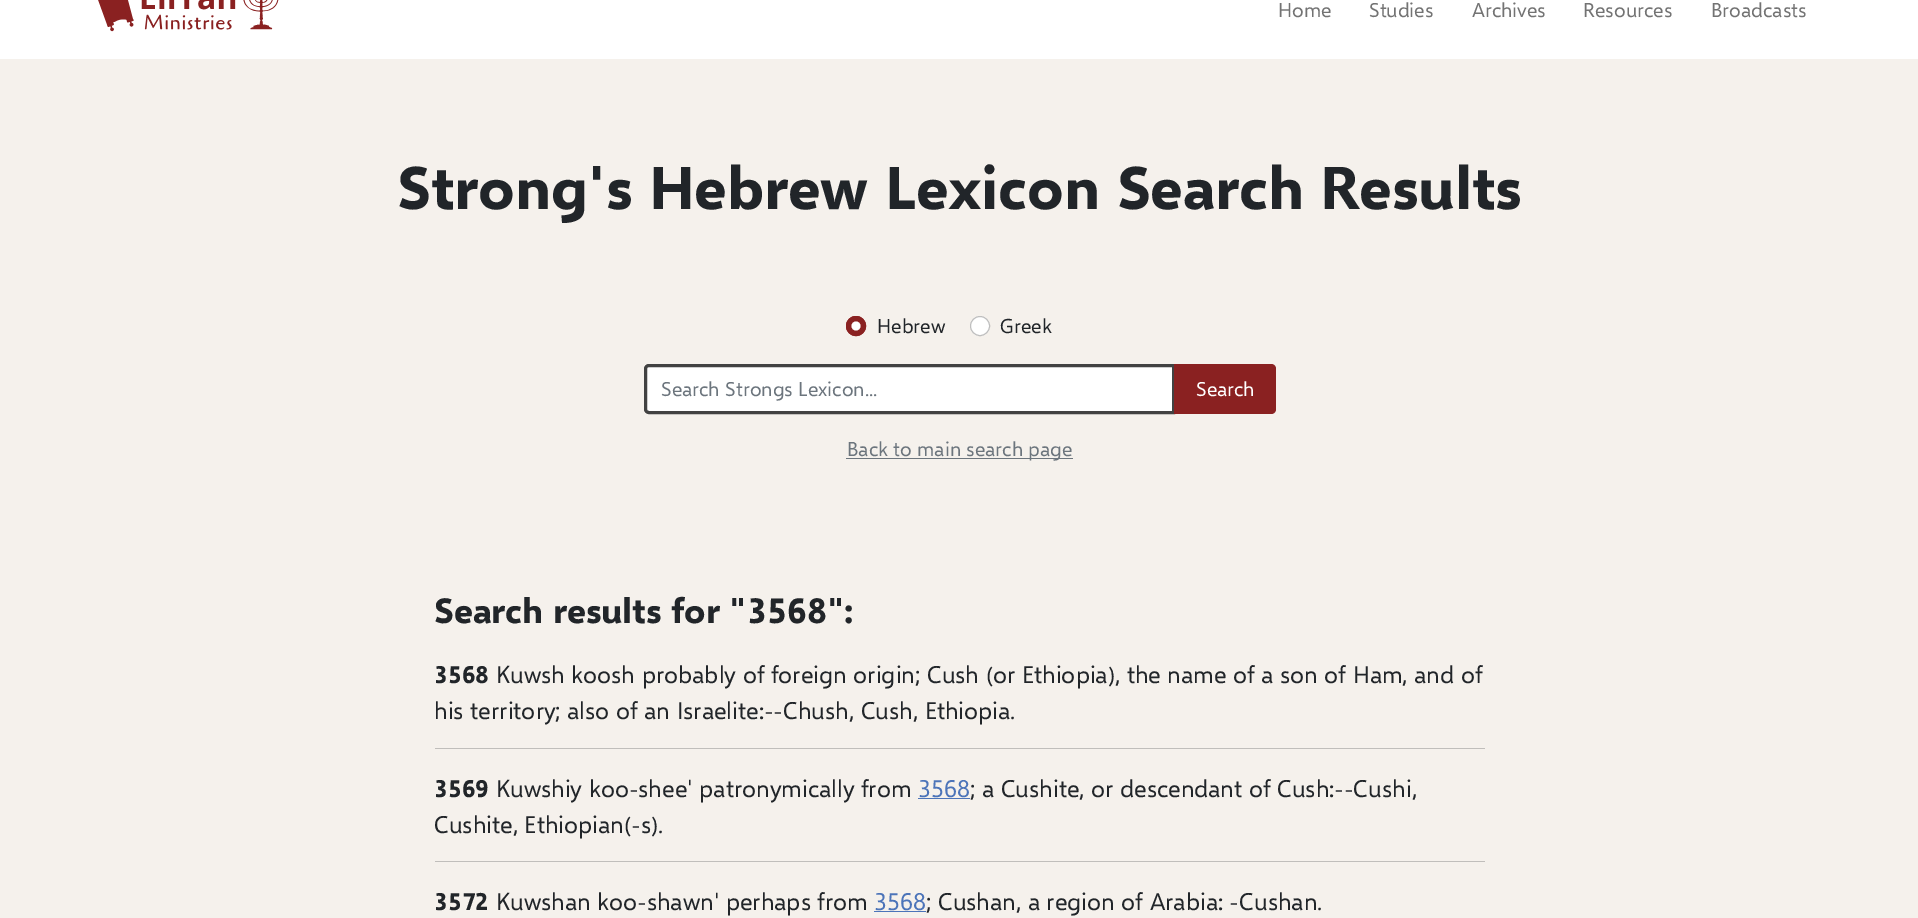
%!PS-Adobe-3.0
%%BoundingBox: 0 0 1918 918
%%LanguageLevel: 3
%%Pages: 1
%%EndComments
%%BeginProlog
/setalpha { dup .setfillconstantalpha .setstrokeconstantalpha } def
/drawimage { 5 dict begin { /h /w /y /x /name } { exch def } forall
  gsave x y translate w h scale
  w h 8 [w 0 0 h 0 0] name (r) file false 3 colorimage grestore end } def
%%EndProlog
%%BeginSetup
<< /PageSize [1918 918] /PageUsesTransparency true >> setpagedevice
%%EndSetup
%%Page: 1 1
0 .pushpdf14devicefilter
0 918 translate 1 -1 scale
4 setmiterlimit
0.961 0.945 0.925 setrgbcolor
0 0 1918 918 rectfill
1 setgray
0 0 1918 59 rectfill
(images/1.raw) 98 0 181 32 drawimage
0.541 0.129 0.129 setrgbcolor
newpath 856 326 10 0 360 arc closepath fill
1 setgray
newpath 856 326 4.5 0 360 arc closepath fill
0.541 0.129 0.129 setrgbcolor
newpath 856 326 9.5 0 360 arc closepath stroke
1 setgray
newpath 980 326 10 0 360 arc closepath fill
0.25 setalpha
0 setgray
newpath 980 326 9.5 0 360 arc closepath stroke
1 setalpha
1 setgray
newpath 649 365.5 moveto 1173.5 365.5 lineto 1173.5 412.5 lineto 649 412.5 lineto 647 412.5 645.5 411 645.5 409 curveto 645.5 369 lineto 645.5 367 647 365.5 649 365.5 curveto closepath gsave fill grestore
0.259 setgray
3 setlinewidth
stroke
0.541 0.129 0.129 setrgbcolor
newpath 1174 364 moveto 1271 364 lineto 1274 364 1276 366 1276 369 curveto 1276 409 lineto 1276 412 1274 414 1271 414 curveto 1174 414 lineto closepath fill
0.424 0.459 0.49 setrgbcolor
846 458 227 1 rectfill
0.753 0.745 0.733 setrgbcolor
435 748 1050 1 rectfill
0.298 0.455 0.725 setrgbcolor
918 798 52 1 rectfill
0.753 0.745 0.733 setrgbcolor
435 861 1050 1 rectfill
0.298 0.455 0.725 setrgbcolor
874 911 52 1 rectfill
/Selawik-Regular [20 0 0 -20 0 0] selectfont
0.451 setgray
1278 17 moveto (Home) show
1369 17 moveto (Studies) show
1472 17 moveto (Archives) show
1583 17 moveto (Resources) show
1711 17 moveto (Broadcasts) show
/Selawik-Bold [60 0 0 -60 0 0] selectfont
0.129 0.145 0.161 setrgbcolor
397 209 moveto (Strong's Hebrew Lexicon Search Results) show
/Selawik-Regular [20 0 0 -20 0 0] selectfont
877 333 moveto (Hebrew) show
1000 333 moveto (Greek) show
0.424 0.459 0.49 setrgbcolor
661 396 moveto (Search Strongs Lexicon...) show
1 setgray
1196 396 moveto (Search) show
0.424 0.459 0.49 setrgbcolor
847 456 moveto (Back to main search page) show
/Selawik-Bold [35 0 0 -35 0 0] selectfont
0.129 0.145 0.161 setrgbcolor
434 623 moveto (Search results for "3568":) show
/Selawik-Bold [24 0 0 -24 0 0] selectfont
434 683 moveto (3568) show
/Selawik-Regular [24 0 0 -24 0 0] selectfont
496 683 moveto (Kuwsh koosh probably of foreign origin; Cush \(or Ethiopia\), the name of a son of Ham, and of) show
434 719 moveto (his territory; also of an Israelite:--Chush, Cush, Ethiopia.) show
/Selawik-Bold [24 0 0 -24 0 0] selectfont
434 797 moveto (3569) show
/Selawik-Regular [24 0 0 -24 0 0] selectfont
496 797 moveto (Kuwshiy koo-shee' patronymically from) show
0.298 0.455 0.725 setrgbcolor
918 797 moveto (3568) show
0.129 0.145 0.161 setrgbcolor
970 797 moveto (; a Cushite, or descendant of Cush:--Cushi,) show
434 833 moveto (Cushite, Ethiopian\(-s\).) show
/Selawik-Bold [24 0 0 -24 0 0] selectfont
434 910 moveto (3572) show
/Selawik-Regular [24 0 0 -24 0 0] selectfont
496 910 moveto (Kuwshan koo-shawn' perhaps from) show
0.298 0.455 0.725 setrgbcolor
874 910 moveto (3568) show
0.129 0.145 0.161 setrgbcolor
926 910 moveto (; Cushan, a region of Arabia: -Cushan.) show
.poppdf14devicefilter showpage
%%EOF
